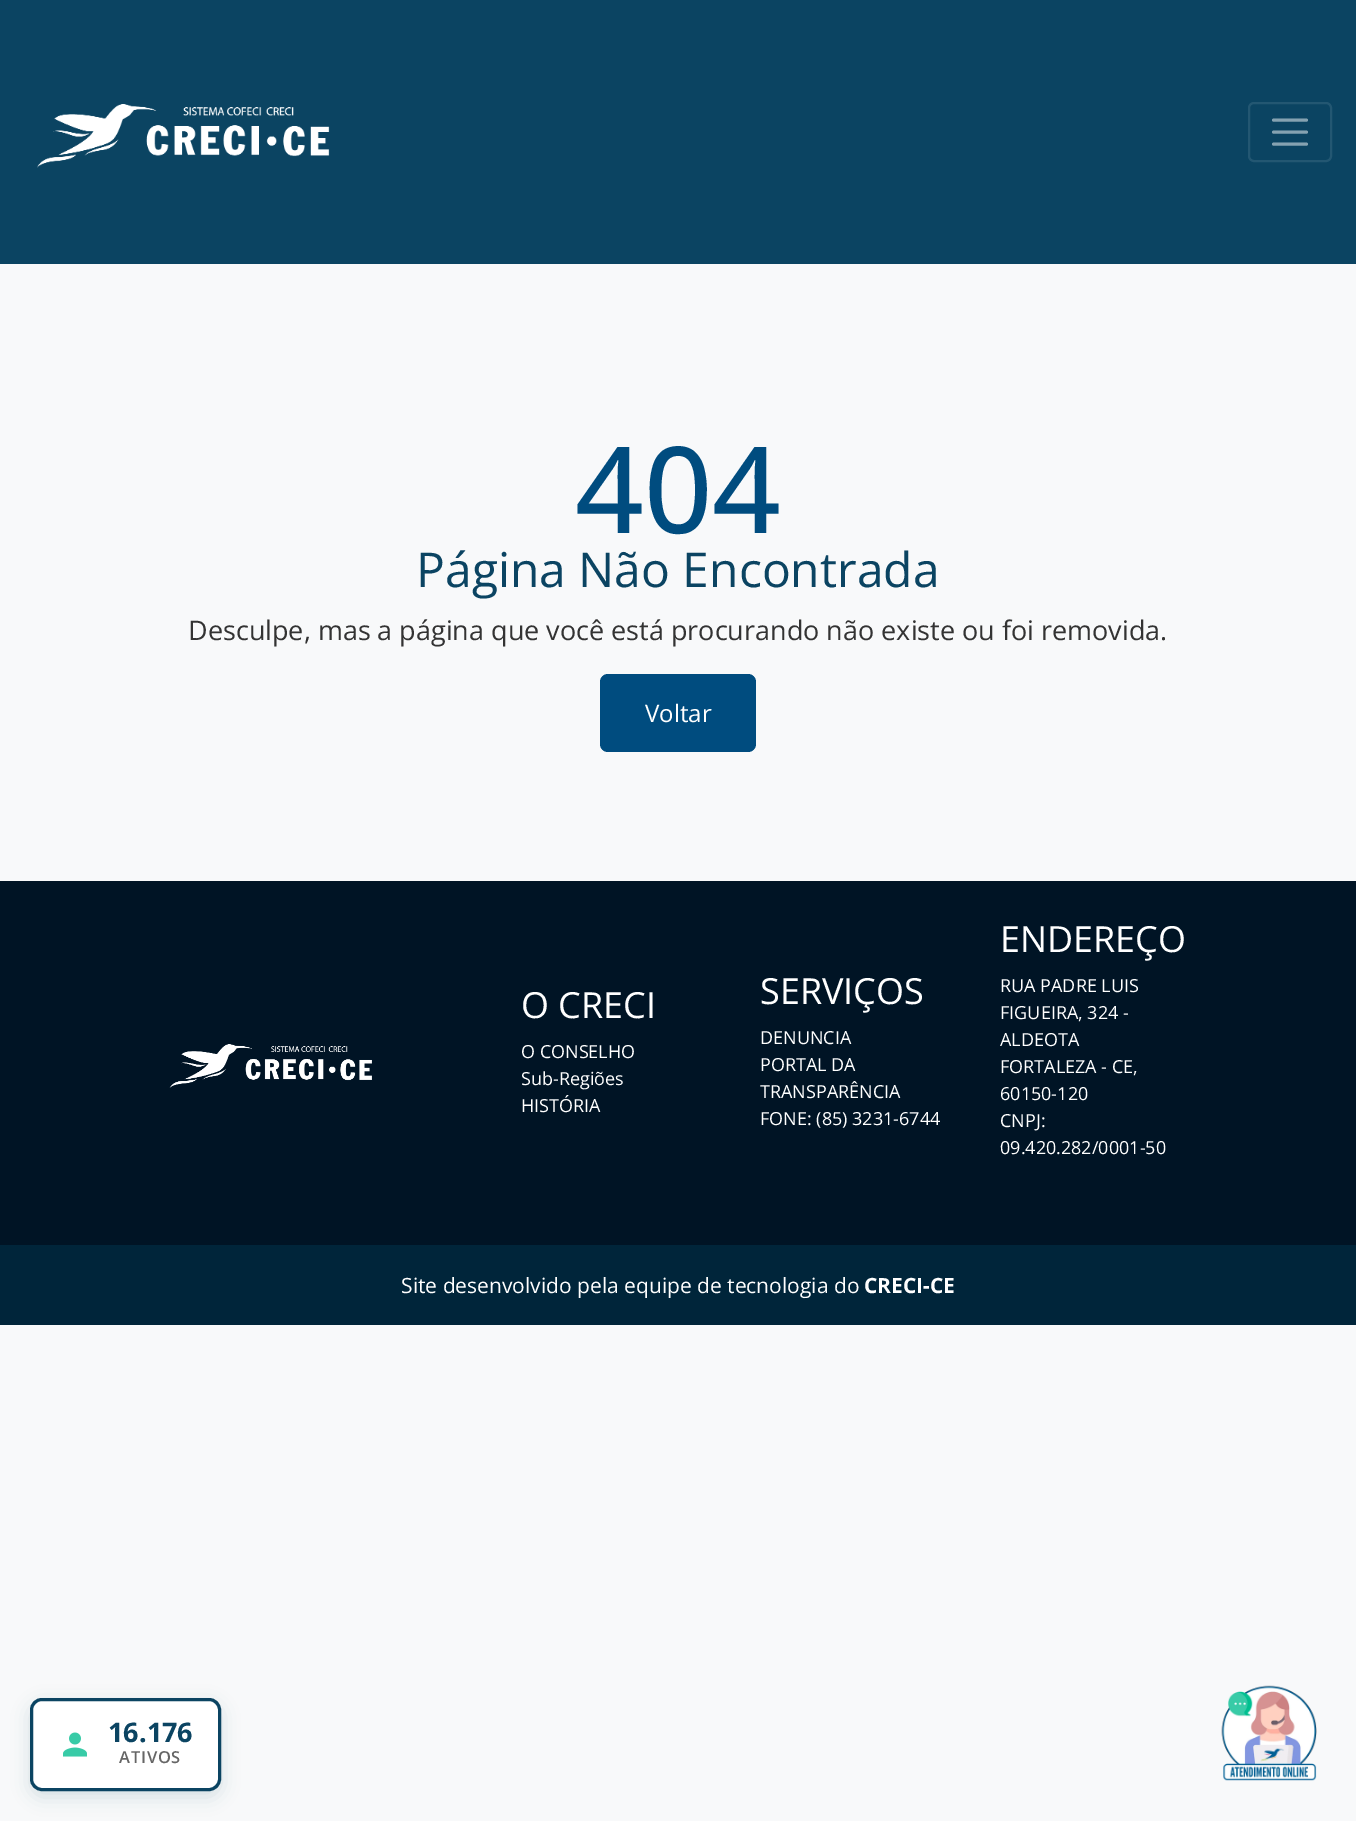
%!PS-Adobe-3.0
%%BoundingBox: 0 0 1356 1821
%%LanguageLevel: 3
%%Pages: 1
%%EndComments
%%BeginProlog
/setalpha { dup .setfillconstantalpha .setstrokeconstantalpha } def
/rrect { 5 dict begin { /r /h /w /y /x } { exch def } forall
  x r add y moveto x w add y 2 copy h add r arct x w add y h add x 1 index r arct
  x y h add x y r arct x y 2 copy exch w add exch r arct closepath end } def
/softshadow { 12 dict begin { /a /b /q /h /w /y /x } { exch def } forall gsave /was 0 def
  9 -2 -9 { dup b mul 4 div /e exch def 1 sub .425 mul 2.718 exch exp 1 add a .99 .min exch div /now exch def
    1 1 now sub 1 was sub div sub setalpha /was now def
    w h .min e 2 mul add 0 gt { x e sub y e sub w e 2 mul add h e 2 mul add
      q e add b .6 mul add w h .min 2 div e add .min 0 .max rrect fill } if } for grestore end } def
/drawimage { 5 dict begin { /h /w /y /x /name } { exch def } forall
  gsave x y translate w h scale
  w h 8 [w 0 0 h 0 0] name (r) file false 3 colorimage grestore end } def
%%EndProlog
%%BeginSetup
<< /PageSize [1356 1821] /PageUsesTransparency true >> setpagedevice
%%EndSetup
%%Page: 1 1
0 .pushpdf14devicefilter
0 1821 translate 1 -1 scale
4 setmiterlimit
0.973 0.976 0.98 setrgbcolor
0 0 1356 1821 rectfill
0.043 0.267 0.384 setrgbcolor
0 0 1356 264 rectfill
(images/1.raw) 37 104 293 64 drawimage
0.137 0.341 0.447 setrgbcolor
2 setlinewidth
1249 103 82 58 5 rrect stroke
0.522 0.635 0.694 setrgbcolor
3 setlinewidth
1 setlinecap
newpath 1273.5 120 moveto 1306.5 120 lineto 1273.5 132 moveto 1306.5 132 lineto 1273.5 144 moveto 1306.5 144 lineto stroke
0 0.298 0.498 setrgbcolor
600 674 156 78 8 rrect fill
0 0.078 0.145 setrgbcolor
0 881 1356 364 rectfill
(images/2.raw) 169 1044 203 44 drawimage
0 0.145 0.227 setrgbcolor
0 1245 1356 80 rectfill
0.043 0.267 0.384 setrgbcolor
30 1704 191 93 12 9 0.15 softshadow
1 setgray
31.5 1699.5 188 90 10.5 rrect gsave fill grestore
0.043 0.267 0.384 setrgbcolor
0 setlinecap
stroke
(images/3.raw) 63 1732 24 25 drawimage
(images/4.raw) 1221 1685 96 96 drawimage
/OpenSans-Medium [120 0 0 -120 0 0] selectfont
0 0.298 0.498 setrgbcolor
575 533 moveto (404) show
/OpenSans-Regular [48 0 0 -48 0 0] selectfont
0.043 0.267 0.384 setrgbcolor
416 587 moveto (Página Não Encontrada) show
/OpenSans-Regular [27 0 0 -27 0 0] selectfont
0.2 setgray
188 640 moveto (Desculpe, mas a página que você está procurando não existe ou foi removida.) show
/OpenSans-Regular [24 0 0 -24 0 0] selectfont
1 setgray
645 722 moveto (Voltar) show
/OpenSans-Regular [36 0 0 -36 0 0] selectfont
521 1018 moveto (O CRECI) show
/OpenSans-Regular [18 0 0 -18 0 0] selectfont
521 1058 moveto (O CONSELHO) show
521 1085 moveto (Sub-Regiões) show
521 1112 moveto (HISTÓRIA) show
/OpenSans-Regular [36 0 0 -36 0 0] selectfont
760 1004 moveto (SERVIÇOS) show
/OpenSans-Regular [18 0 0 -18 0 0] selectfont
760 1044 moveto (DENUNCIA) show
760 1071 moveto (PORTAL DA) show
760 1098 moveto (TRANSPARÊNCIA) show
760 1125 moveto (FONE: \(85\) 3231-6744) show
/OpenSans-Regular [36 0 0 -36 0 0] selectfont
1000 952 moveto (ENDEREÇO) show
/OpenSans-Regular [18 0 0 -18 0 0] selectfont
1000 992 moveto (RUA PADRE LUIS) show
1000 1019 moveto (FIGUEIRA, 324 -) show
1000 1046 moveto (ALDEOTA) show
1000 1073 moveto (FORTALEZA - CE,) show
1000 1100 moveto (60150-120) show
1000 1127 moveto (CNPJ:) show
1000 1154 moveto (09.420.282/0001-50) show
/OpenSans-Regular [21 0 0 -21 0 0] selectfont
401 1293 moveto (Site desenvolvido pela equipe de tecnologia do) show
/OpenSans-Bold [21 0 0 -21 0 0] selectfont
864 1293 moveto (CRECI-CE) show
/OpenSans-Bold [27 0 0 -27 0 0] selectfont
0.043 0.267 0.384 setrgbcolor
108 1742 moveto (16.176) show
/OpenSans-SemiBold [16.5 0 0 -16.5 0 0] selectfont
0.4 setgray
119 1763 moveto 0.75 0 (ATIVOS) ashow
.poppdf14devicefilter showpage
%%EOF
